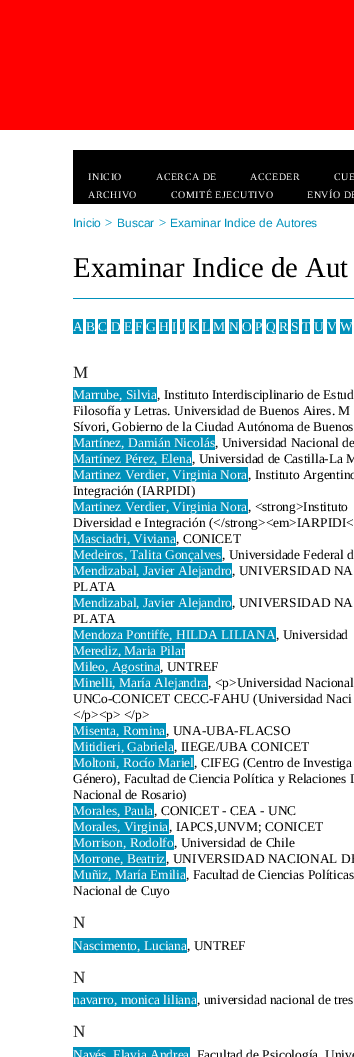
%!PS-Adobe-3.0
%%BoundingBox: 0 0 354 1057
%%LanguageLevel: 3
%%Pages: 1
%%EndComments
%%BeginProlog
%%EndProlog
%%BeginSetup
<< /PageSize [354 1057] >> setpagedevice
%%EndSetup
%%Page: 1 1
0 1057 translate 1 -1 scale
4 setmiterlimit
1 setgray
0 0 354 1057 rectfill
1 0 0 setrgbcolor
0 0 354 130 rectfill
0 setgray
73 150 281 54 rectfill
0 0.569 0.733 setrgbcolor
73 298 281 1 rectfill
73 319 10 15 rectfill
86 319 9 15 rectfill
98 319 9 15 rectfill
111 319 9 15 rectfill
124 319 8 15 rectfill
135 319 8 15 rectfill
146 319 10 15 rectfill
159 319 10 15 rectfill
172 319 5 15 rectfill
180 319 5 15 rectfill
189 319 10 15 rectfill
202 319 8 15 rectfill
213 319 12 15 rectfill
229 319 10 15 rectfill
242 319 10 15 rectfill
255 319 7 15 rectfill
266 319 10 15 rectfill
279 319 9 15 rectfill
291 319 8 15 rectfill
302 319 8 15 rectfill
314 319 9 15 rectfill
327 319 9 15 rectfill
340 319 12 15 rectfill
73 387 84 15 rectfill
73 435 142 15 rectfill
73 451 119 15 rectfill
73 467 175 15 rectfill
73 499 175 15 rectfill
73 531 103 15 rectfill
73 547 149 15 rectfill
73 563 159 15 rectfill
73 595 159 15 rectfill
73 627 203 15 rectfill
73 643 112 15 rectfill
73 659 87 15 rectfill
73 675 135 15 rectfill
73 723 93 15 rectfill
73 739 101 15 rectfill
73 755 121 15 rectfill
73 803 81 15 rectfill
73 819 96 15 rectfill
73 835 101 15 rectfill
73 851 93 15 rectfill
73 867 113 15 rectfill
73 938 114 15 rectfill
73 992 124 15 rectfill
73 1047 117 10 rectfill
/LiberationSerif-Regular [10 0 0 -10 0 0] selectfont
1 setgray
88 180 moveto 0.5 0 (INICIO) ashow
156 180 moveto 0.5 0 (ACERCA DE) ashow
250 180 moveto 0.5 0 (ACCEDER) ashow
334 180 moveto 0.5 0 (CUE) ashow
88 198 moveto 0.5 0 (ARCHIVO) ashow
171 198 moveto 0.5 0 (COMITÉ EJECUTIVO) ashow
307 198 moveto 0.5 0 (ENVÍO DE) ashow
/LiberationSans-Regular [12 0 0 -12 0 0] selectfont
0 0.569 0.733 setrgbcolor
73 227 moveto (Inicio) show
/LiberationSerif-Italic [13.4 0 0 -13.4 0 0] selectfont
104 227 moveto (>) show
/LiberationSans-Regular [12 0 0 -12 0 0] selectfont
117 227 moveto (Buscar) show
/LiberationSerif-Italic [13.4 0 0 -13.4 0 0] selectfont
158 227 moveto (>) show
/LiberationSans-Regular [12 0 0 -12 0 0] selectfont
170 227 moveto (Examinar Indice de Autores) show
/LiberationSerif-Regular [28.75 0 0 -28.75 0 0] selectfont
0 setgray
73 277 moveto (Examinar Indice de Aut) show
/LiberationSerif-Regular [13.4 0 0 -13.4 0 0] selectfont
1 setgray
73 331 moveto (A) show
86 331 moveto (B) show
98 331 moveto (C) show
111 331 moveto (D) show
124 331 moveto (E) show
135 331 moveto (F) show
146 331 moveto (G) show
159 331 moveto (H) show
172 331 moveto (I) show
180 331 moveto (J) show
189 331 moveto (K) show
202 331 moveto (L) show
213 331 moveto (M) show
229 331 moveto (N) show
242 331 moveto (O) show
255 331 moveto (P) show
266 331 moveto (Q) show
279 331 moveto (R) show
291 331 moveto (S) show
302 331 moveto (T) show
314 331 moveto (U) show
327 331 moveto (V) show
340 331 moveto (W) show
/LiberationSerif-Regular [17 0 0 -17 0 0] selectfont
0.137 setgray
73 378 moveto (M) show
/LiberationSerif-Regular [13.4 0 0 -13.4 0 0] selectfont
1 setgray
73 399 moveto (Marrube, Silvia) show
0 setgray
157 399 moveto (, Instituto Interdisciplinario de Estud) show
73 415 moveto (Filosofía y Letras. Universidad de Buenos Aires. M) show
73 431 moveto (Sívori, Gobierno de la Ciudad Autónoma de Buenos) show
1 setgray
73 447 moveto (Martínez, Damián Nicolás) show
0 setgray
215 447 moveto (, Universidad Nacional de) show
1 setgray
73 463 moveto (Martínez Pérez, Elena) show
0 setgray
192 463 moveto (, Universidad de Castilla-La M) show
1 setgray
73 479 moveto (Martinez Verdier, Virginia Nora) show
0 setgray
248 479 moveto (, Instituto Argentino) show
73 495 moveto (Integración \(IARPIDI\)) show
1 setgray
73 511 moveto (Martinez Verdier, Virginia Nora) show
0 setgray
248 511 moveto (, <strong>Instituto) show
73 527 moveto (Diversidad e Integración \(</strong><em>IARPIDI<) show
1 setgray
73 543 moveto (Masciadri, Viviana) show
0 setgray
176 543 moveto (, CONICET) show
1 setgray
73 559 moveto (Medeiros, Talita Gonçalves) show
0 setgray
222 559 moveto (, Universidade Federal d) show
1 setgray
73 575 moveto (Mendizabal, Javier Alejandro) show
0 setgray
232 575 moveto (, UNIVERSIDAD NA) show
73 591 moveto (PLATA) show
1 setgray
73 607 moveto (Mendizabal, Javier Alejandro) show
0 setgray
232 607 moveto (, UNIVERSIDAD NA) show
73 623 moveto (PLATA) show
1 setgray
73 639 moveto (Mendoza Pontiffe, HILDA LILIANA) show
0 setgray
276 639 moveto (, Universidad) show
1 setgray
73 655 moveto (Merediz, Maria Pilar) show
73 671 moveto (Mileo, Agostina) show
0 setgray
160 671 moveto (, UNTREF) show
1 setgray
73 687 moveto (Minelli, María Alejandra) show
0 setgray
208 687 moveto (, <p>Universidad Nacional) show
73 703 moveto (UNCo-CONICET CECC-FAHU \(Universidad Naci) show
73 719 moveto (</p><p> </p>) show
1 setgray
73 735 moveto (Misenta, Romina) show
0 setgray
166 735 moveto (, UNA-UBA-FLACSO) show
1 setgray
73 751 moveto (Mitidieri, Gabriela) show
0 setgray
174 751 moveto (, IIEGE/UBA CONICET) show
1 setgray
73 767 moveto (Moltoni, Rocío Mariel) show
0 setgray
194 767 moveto (, CIFEG \(Centro de Investiga) show
73 783 moveto (Género\), Facultad de Ciencia Política y Relaciones I) show
73 799 moveto (Nacional de Rosario\)) show
1 setgray
73 815 moveto (Morales, Paula) show
0 setgray
154 815 moveto (, CONICET - CEA - UNC) show
1 setgray
73 831 moveto (Morales, Virginia) show
0 setgray
169 831 moveto (, IAPCS,UNVM; CONICET) show
1 setgray
73 847 moveto (Morrison, Rodolfo) show
0 setgray
174 847 moveto (, Universidad de Chile) show
1 setgray
73 863 moveto (Morrone, Beatriz) show
0 setgray
166 863 moveto (, UNIVERSIDAD NACIONAL DE) show
1 setgray
73 879 moveto (Muñiz, María Emilia) show
0 setgray
186 879 moveto (, Facultad de Ciencias Políticas) show
73 895 moveto (Nacional de Cuyo) show
/LiberationSerif-Regular [17 0 0 -17 0 0] selectfont
0.137 setgray
73 928 moveto (N) show
/LiberationSerif-Regular [13.4 0 0 -13.4 0 0] selectfont
1 setgray
73 950 moveto (Nascimento, Luciana) show
0 setgray
187 950 moveto (, UNTREF) show
/LiberationSerif-Regular [17 0 0 -17 0 0] selectfont
0.137 setgray
73 983 moveto (N) show
/LiberationSerif-Regular [13.4 0 0 -13.4 0 0] selectfont
1 setgray
73 1004 moveto (navarro, monica liliana) show
0 setgray
197 1004 moveto (, universidad nacional de tres) show
/LiberationSerif-Regular [17 0 0 -17 0 0] selectfont
0.137 setgray
73 1037 moveto (N) show
/LiberationSerif-Regular [13.4 0 0 -13.4 0 0] selectfont
1 setgray
73 1059 moveto (Navés, Flavia Andrea) show
0 setgray
197 1059 moveto (Facultad de Psicología, Unive) show
showpage
%%EOF
